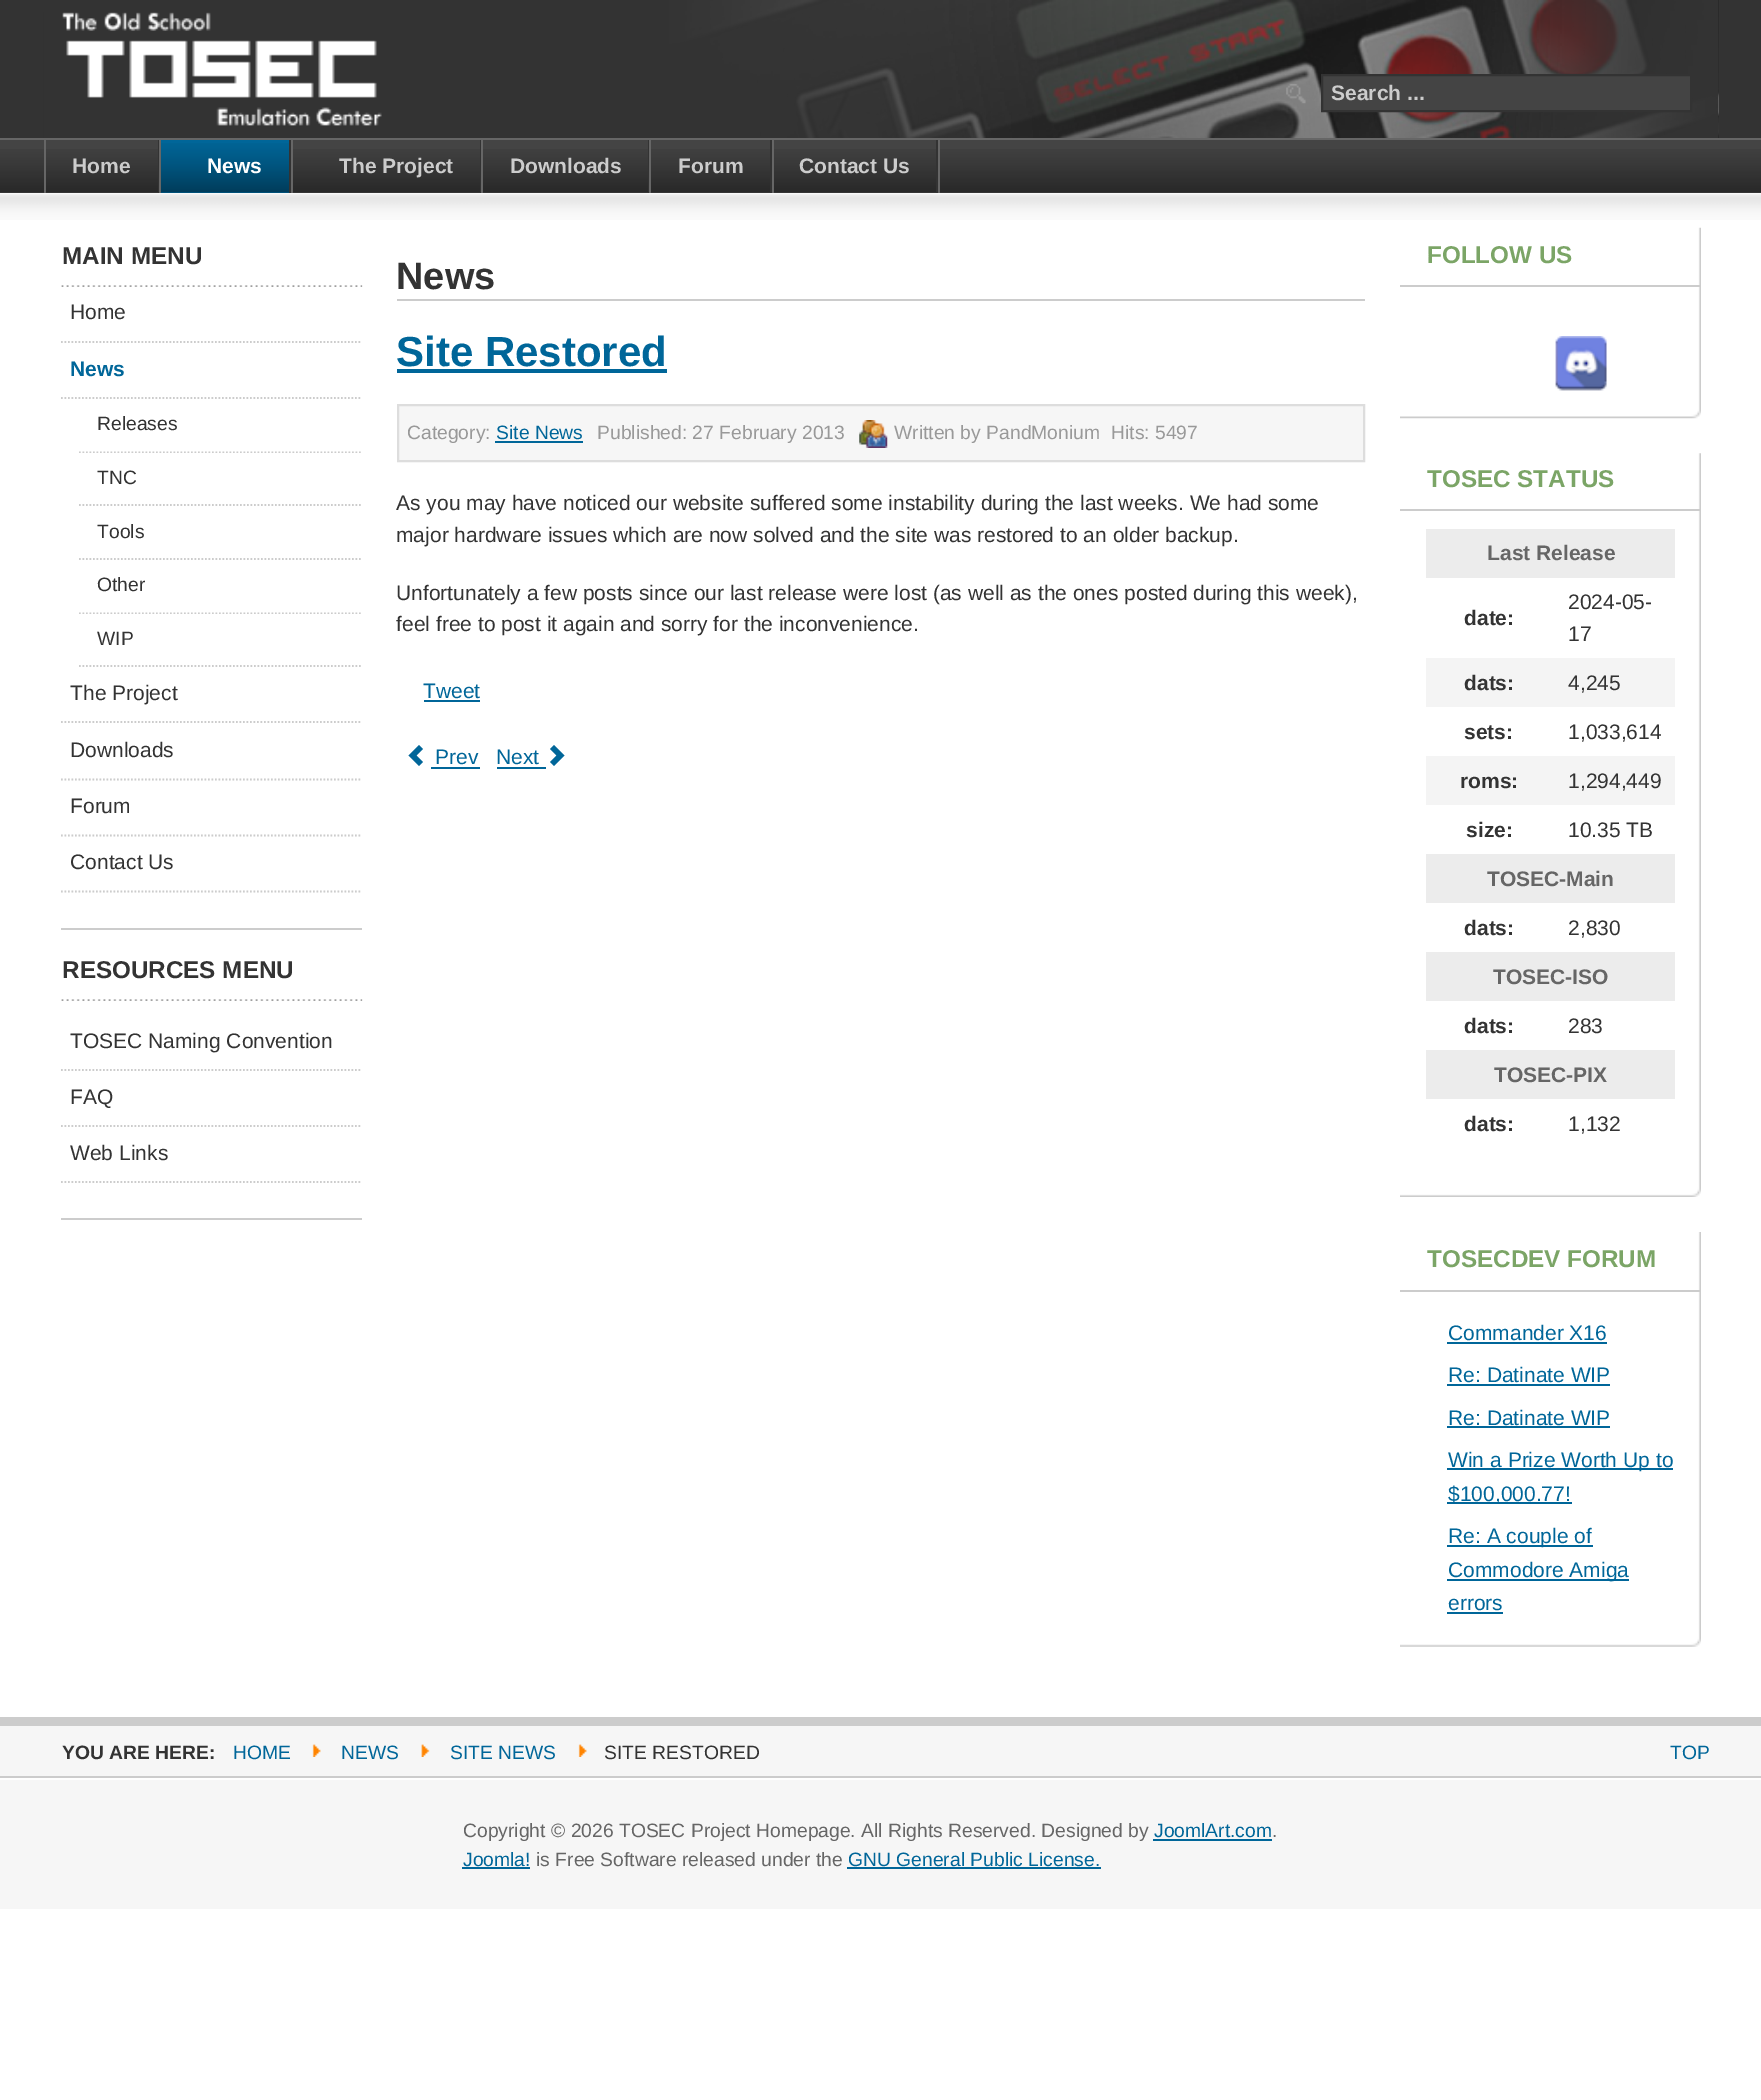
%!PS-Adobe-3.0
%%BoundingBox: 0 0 1761 2100
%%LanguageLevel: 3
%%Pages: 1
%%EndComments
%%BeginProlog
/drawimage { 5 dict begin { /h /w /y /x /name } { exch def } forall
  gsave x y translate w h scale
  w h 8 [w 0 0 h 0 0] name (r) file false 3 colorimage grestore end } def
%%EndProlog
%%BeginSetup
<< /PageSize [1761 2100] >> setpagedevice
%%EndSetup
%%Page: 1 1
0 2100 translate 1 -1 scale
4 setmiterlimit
1 setgray
0 0 1761 2100 rectfill
0.2 setgray
0 0 1761 138 rectfill
(images/1.raw) 675 0 1044 138 drawimage
(images/2.raw) 665 0 1054 138 drawimage
(images/3.raw) 43 12 363 126 drawimage
(images/4.raw) 1286 84 20 20 drawimage
0.267 setgray
newpath 1322 75 moveto 1691 75 lineto 1691 111 lineto 1322 111 lineto closepath gsave fill grestore
0.2 setgray
2 setlinewidth
stroke
0.267 setgray
0 140 1761 53 rectfill
(images/5.raw) 0 149 1761 44 drawimage
0.4 setgray
0 138 1761 2 rectfill
938 140 2 53 rectfill
0.2 setgray
158 140 1 53 rectfill
0.4 setgray
44 140 2 53 rectfill
0 0.4 0.6 setrgbcolor
161 140 128 53 rectfill
(images/6.raw) 161 143 128 50 drawimage
0.2 setgray
289 140 2 53 rectfill
0.4 setgray
159 140 2 53 rectfill
0.2 setgray
480 140 1 53 rectfill
0.4 setgray
291 140 2 53 rectfill
0.2 setgray
648 140 1 53 rectfill
0.4 setgray
481 140 2 53 rectfill
0.2 setgray
770 140 2 53 rectfill
0.4 setgray
649 140 2 53 rectfill
0.2 setgray
936 140 2 53 rectfill
0.4 setgray
772 140 2 53 rectfill
(images/7.raw) 0 193 1761 27 drawimage
0.8 setgray
0 1717 1761 9 rectfill
61 928 301 2 rectfill
(images/8.raw) 61 285 302 2 drawimage
1.8 setlinewidth
[1.75 1.75] 0 setdash
newpath 61 342 moveto 362 342 lineto stroke
newpath 61 398 moveto 362 398 lineto stroke
gsave
79 399 283 54 rectclip
newpath 79 452.5 moveto 362 452.5 lineto stroke
grestore
newpath 79 505 moveto 362 505 lineto stroke
newpath 79 559 moveto 362 559 lineto stroke
gsave
79 560 283 54 rectclip
newpath 79 613.5 moveto 362 613.5 lineto stroke
grestore
newpath 79 666 moveto 362 666 lineto stroke
newpath 61 722 moveto 362 722 lineto stroke
newpath 61 779.5 moveto 362 779.5 lineto stroke
newpath 61 835.5 moveto 362 835.5 lineto stroke
newpath 61 891.5 moveto 362 891.5 lineto stroke
61 1218 301 2 rectfill
(images/8.raw) 61 999 302 2 drawimage
newpath 61 1070 moveto 362 1070 lineto stroke
newpath 61 1126 moveto 362 1126 lineto stroke
newpath 61 1182 moveto 362 1182 lineto stroke
397 299 968 2 rectfill
0 0.4 0.6 setrgbcolor
397 369 270 4 rectfill
0.965 setgray
newpath 398 405 moveto 1364 405 lineto 1364 461 lineto 398 461 lineto closepath gsave fill grestore
0.867 setgray
2 setlinewidth
[] 0 setdash
stroke
0 0.4 0.6 setrgbcolor
495 441 88 2 rectfill
(images/9.raw) 859 420 29 28 drawimage
424 700 56 2 rectfill
newpath 419 766 moveto 408.5 755.5 lineto 419 745 lineto 423 749 lineto 416.5 755.5 lineto 423 762 lineto closepath fill
431 767 49 2 rectfill
497 767 49 2 rectfill
newpath 554 745 moveto 564.5 755.5 lineto 554 766 lineto 550 762 lineto 556.5 755.5 lineto 550 749 lineto closepath fill
(images/10.raw) 1400 227 301 192 drawimage
0.8 setgray
1400 285 301 2 rectfill
(images/11.raw) 1555 336 52 55 drawimage
(images/12.raw) 1400 453 301 744 drawimage
1400 509 301 2 rectfill
0.925 setgray
1426 529 249 49 rectfill
0.957 setgray
1426 658 249 49 rectfill
1426 756 249 49 rectfill
0.925 setgray
1426 854 249 49 rectfill
1426 952 249 49 rectfill
1426 1050 249 49 rectfill
(images/13.raw) 1400 1232 301 415 drawimage
0.8 setgray
1400 1290 301 2 rectfill
0 0.4 0.6 setrgbcolor
1447 1342 160 2 rectfill
1447 1384 163 2 rectfill
1447 1426 163 2 rectfill
1447 1468 226 2 rectfill
1447 1502 125 2 rectfill
1447 1545 146 2 rectfill
1447 1579 182 2 rectfill
1447 1612 56 2 rectfill
0.965 setgray
0 1726 1761 50 rectfill
0.8 setgray
0 1776 1761 2 rectfill
(images/14.raw) 312 1744 9 13 drawimage
(images/15.raw) 421 1744 9 13 drawimage
(images/16.raw) 578 1744 9 13 drawimage
0.965 setgray
0 1780 1761 129 rectfill
0 0.4 0.6 setrgbcolor
1153 1839 119 2 rectfill
462 1867 68 2 rectfill
847 1867 254 2 rectfill
/LiberationSans-Bold [21 0 0 -21 0 0] selectfont
0.8 setgray
1331 100 moveto (Search ...) show
72 173 moveto (Home) show
1 setgray
207 173 moveto (News) show
0.8 setgray
339 173 moveto (The Project) show
510 173 moveto (Downloads) show
678 173 moveto (Forum) show
799 173 moveto (Contact Us) show
/LiberationSans-Bold [24.25 0 0 -24.25 0 0] selectfont
0.2 setgray
62 264 moveto (MAIN MENU) show
/LiberationSans-Regular [21 0 0 -21 0 0] selectfont
70 319 moveto (Home) show
/LiberationSans-Bold [21 0 0 -21 0 0] selectfont
0 0.4 0.6 setrgbcolor
70 376 moveto (News) show
/LiberationSans-Regular [19.3 0 0 -19.3 0 0] selectfont
0.2 setgray
97 430 moveto (Releases) show
97 484 moveto (TNC) show
97 538 moveto (Tools) show
97 591 moveto (Other) show
97 645 moveto (WIP) show
/LiberationSans-Regular [21 0 0 -21 0 0] selectfont
70 700 moveto (The Project) show
70 757 moveto (Downloads) show
70 813 moveto (Forum) show
70 869 moveto (Contact Us) show
/LiberationSans-Bold [24.25 0 0 -24.25 0 0] selectfont
62 978 moveto (RESOURCES MENU) show
/LiberationSans-Regular [21 0 0 -21 0 0] selectfont
70 1048 moveto (TOSEC Naming Convention) show
70 1104 moveto (FAQ) show
70 1160 moveto (Web Links) show
/LiberationSans-Bold [38 0 0 -38 0 0] selectfont
396 289 moveto (News) show
/LiberationSans-Bold [42 0 0 -42 0 0] selectfont
0 0.4 0.6 setrgbcolor
396 366 moveto (Site Restored) show
/LiberationSans-Regular [19.3 0 0 -19.3 0 0] selectfont
0.6 setgray
407 439 moveto (Category:) show
0 0.4 0.6 setrgbcolor
496 439 moveto (Site News) show
0.6 setgray
597 439 moveto (Published: 27 February 2013) show
894 439 moveto (Written by PandMonium) show
1111 439 moveto (Hits: 5497) show
/LiberationSans-Regular [21 0 0 -21 0 0] selectfont
0.2 setgray
396 510 moveto (As you may have noticed our website suffered some instability during the last weeks. We had some) show
396 542 moveto (major hardware issues which are now solved and the site was restored to an older backup.) show
396 600 moveto (Unfortunately a few posts since our last release were lost \(as well as the ones posted during this week\),) show
396 631 moveto (feel free to post it again and sorry for the inconvenience.) show
0 0.4 0.6 setrgbcolor
423 698 moveto (Tweet) show
435 764 moveto (Prev) show
496 764 moveto (Next) show
/LiberationSans-Bold [24.25 0 0 -24.25 0 0] selectfont
0.482 0.647 0.4 setrgbcolor
1427 263 moveto (FOLLOW US) show
1427 487 moveto (TOSEC STATUS) show
/LiberationSans-Bold [21 0 0 -21 0 0] selectfont
0.4 setgray
1487 560 moveto (Last Release) show
0.2 setgray
1464 625 moveto (date:) show
/LiberationSans-Regular [21 0 0 -21 0 0] selectfont
1568 609 moveto (2024-05-) show
1568 641 moveto (17) show
/LiberationSans-Bold [21 0 0 -21 0 0] selectfont
1464 690 moveto (dats:) show
/LiberationSans-Regular [21 0 0 -21 0 0] selectfont
1568 690 moveto (4,245) show
/LiberationSans-Bold [21 0 0 -21 0 0] selectfont
1464 739 moveto (sets:) show
/LiberationSans-Regular [21 0 0 -21 0 0] selectfont
1568 739 moveto (1,033,614) show
/LiberationSans-Bold [21 0 0 -21 0 0] selectfont
1460 788 moveto (roms:) show
/LiberationSans-Regular [21 0 0 -21 0 0] selectfont
1568 788 moveto (1,294,449) show
/LiberationSans-Bold [21 0 0 -21 0 0] selectfont
1466 837 moveto (size:) show
/LiberationSans-Regular [21 0 0 -21 0 0] selectfont
1568 837 moveto (10.35 TB) show
/LiberationSans-Bold [21 0 0 -21 0 0] selectfont
0.4 setgray
1487 886 moveto (TOSEC-Main) show
0.2 setgray
1464 935 moveto (dats:) show
/LiberationSans-Regular [21 0 0 -21 0 0] selectfont
1568 935 moveto (2,830) show
/LiberationSans-Bold [21 0 0 -21 0 0] selectfont
0.4 setgray
1493 984 moveto (TOSEC-ISO) show
0.2 setgray
1464 1033 moveto (dats:) show
/LiberationSans-Regular [21 0 0 -21 0 0] selectfont
1568 1033 moveto (283) show
/LiberationSans-Bold [21 0 0 -21 0 0] selectfont
0.4 setgray
1494 1082 moveto (TOSEC-PIX) show
0.2 setgray
1464 1131 moveto (dats:) show
/LiberationSans-Regular [21 0 0 -21 0 0] selectfont
1568 1131 moveto (1,132) show
/LiberationSans-Bold [24.25 0 0 -24.25 0 0] selectfont
0.482 0.647 0.4 setrgbcolor
1427 1267 moveto (TOSECDEV FORUM) show
/LiberationSans-Regular [21 0 0 -21 0 0] selectfont
0 0.4 0.6 setrgbcolor
1448 1340 moveto (Commander X16) show
1448 1382 moveto (Re: Datinate WIP) show
1448 1425 moveto (Re: Datinate WIP) show
1448 1467 moveto (Win a Prize Worth Up to) show
1448 1501 moveto ($100,000.77!) show
1448 1543 moveto (Re: A couple of) show
1448 1577 moveto (Commodore Amiga) show
1448 1610 moveto (errors) show
/LiberationSans-Bold [19.3 0 0 -19.3 0 0] selectfont
0.2 setgray
62 1759 moveto (YOU ARE HERE:) show
/LiberationSans-Regular [19.3 0 0 -19.3 0 0] selectfont
0 0.4 0.6 setrgbcolor
233 1759 moveto (HOME) show
341 1759 moveto (NEWS) show
450 1759 moveto (SITE NEWS) show
0.2 setgray
604 1759 moveto (SITE RESTORED) show
0 0.4 0.6 setrgbcolor
1670 1759 moveto (TOP) show
0.4 setgray
463 1837 moveto (Copyright © 2026 TOSEC Project Homepage. All Rights Reserved. Designed by) show
0 0.4 0.6 setrgbcolor
1154 1837 moveto (JoomlArt.com) show
0.4 setgray
1272 1837 moveto (.) show
0 0.4 0.6 setrgbcolor
463 1866 moveto (Joomla!) show
0.4 setgray
536 1866 moveto (is Free Software released under the) show
0 0.4 0.6 setrgbcolor
848 1866 moveto (GNU General Public License.) show
showpage
%%EOF
